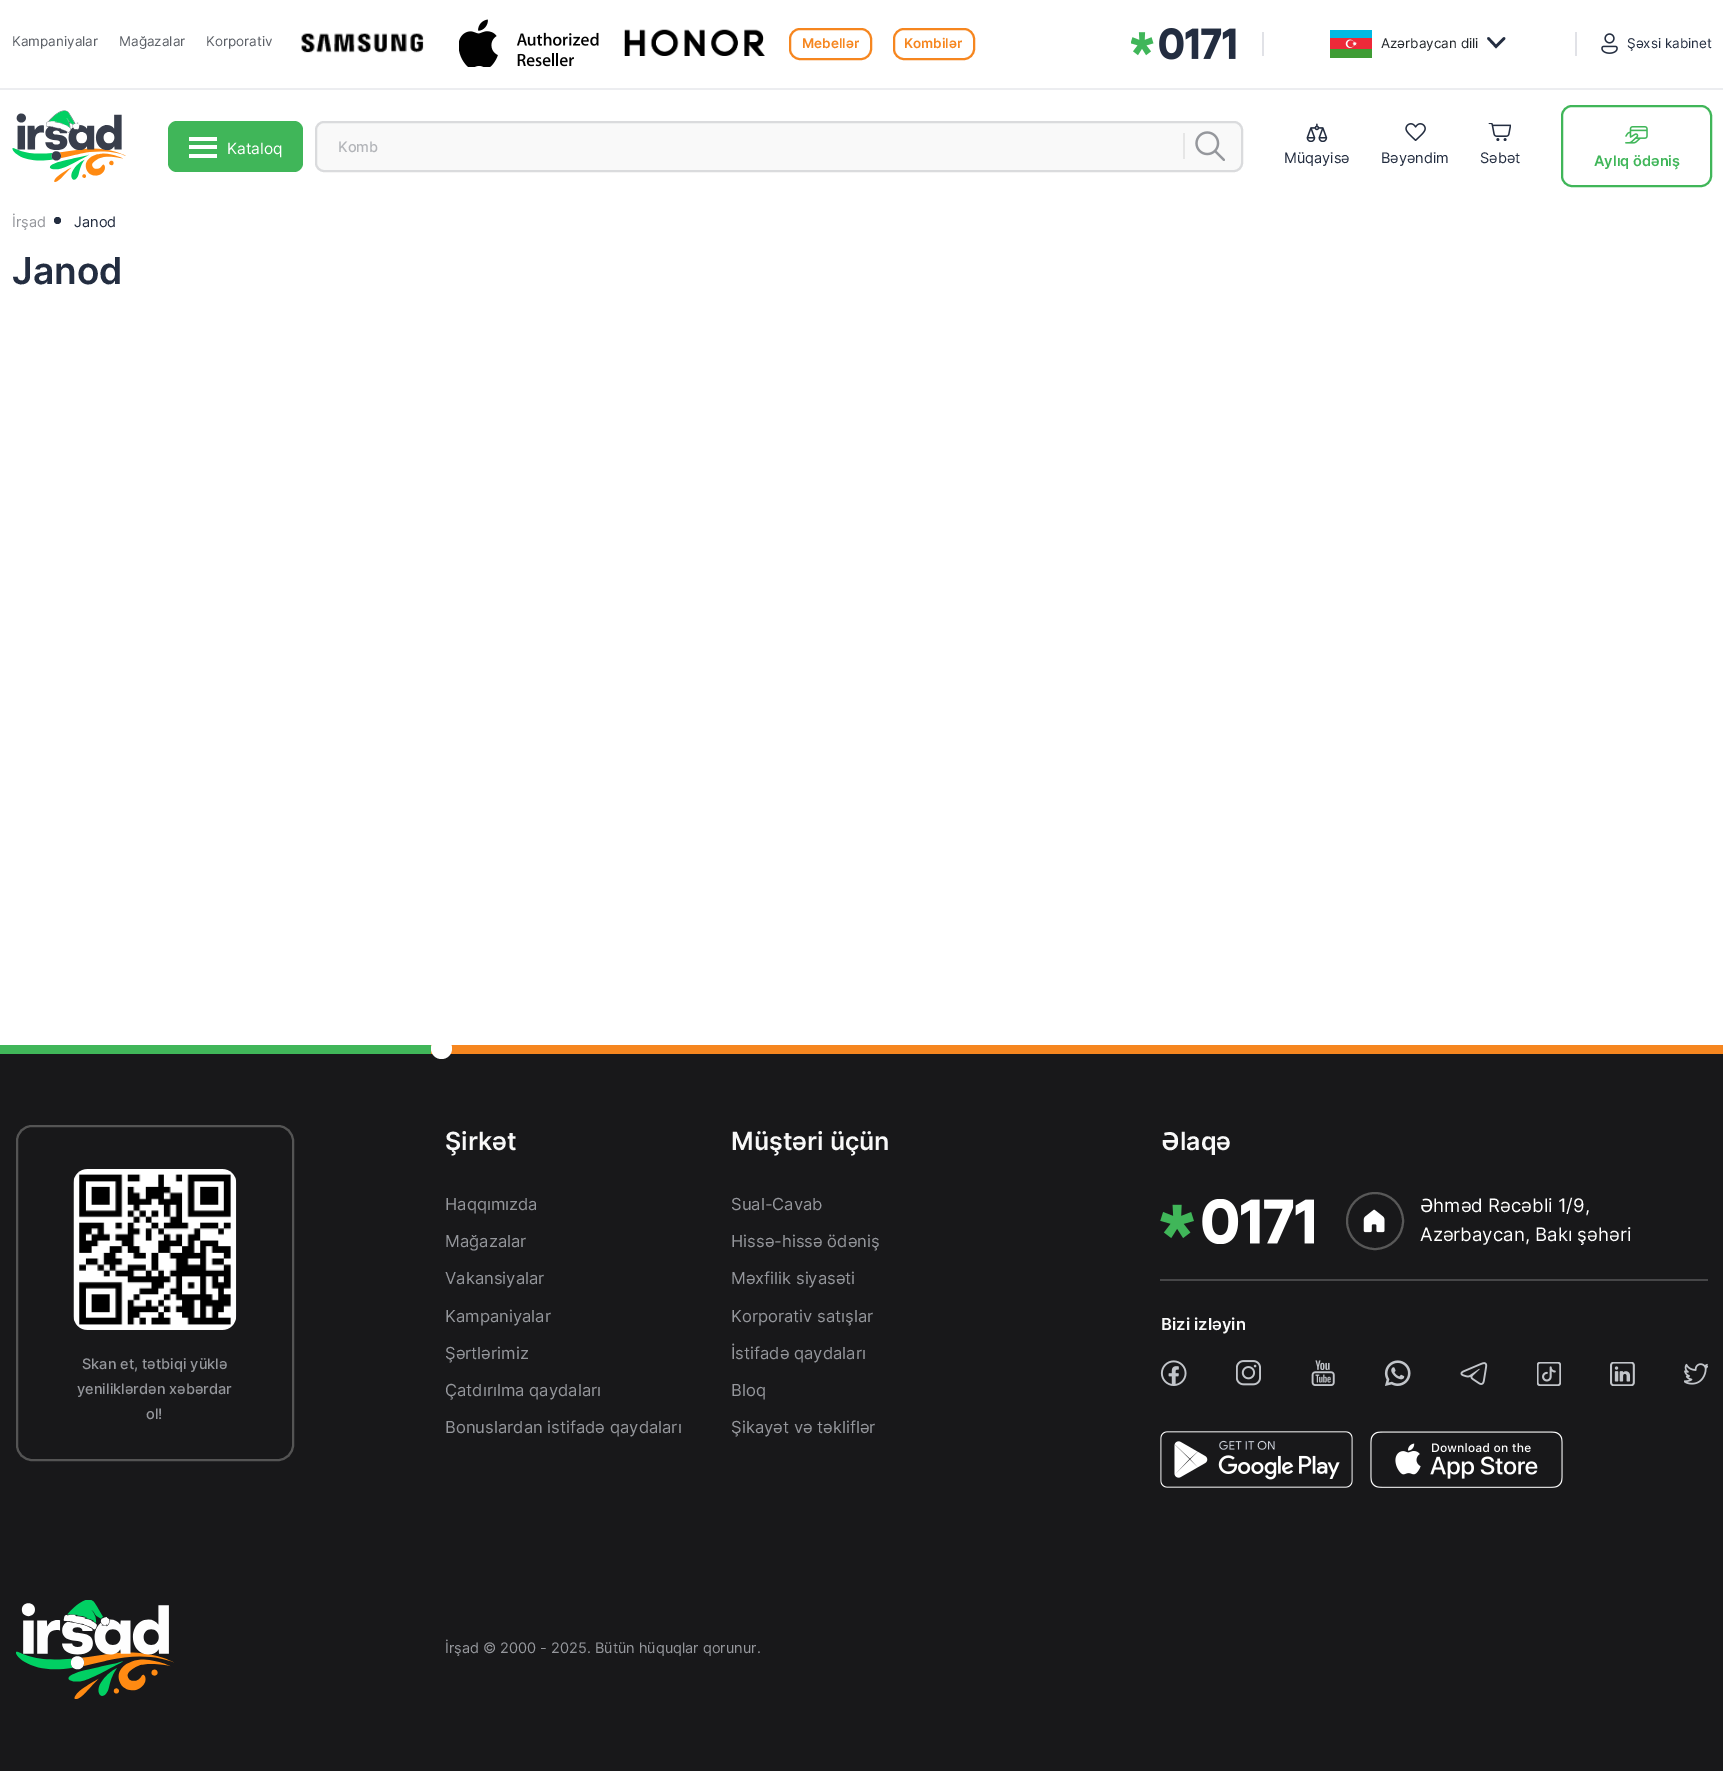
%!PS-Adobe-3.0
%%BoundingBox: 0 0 1723 1771
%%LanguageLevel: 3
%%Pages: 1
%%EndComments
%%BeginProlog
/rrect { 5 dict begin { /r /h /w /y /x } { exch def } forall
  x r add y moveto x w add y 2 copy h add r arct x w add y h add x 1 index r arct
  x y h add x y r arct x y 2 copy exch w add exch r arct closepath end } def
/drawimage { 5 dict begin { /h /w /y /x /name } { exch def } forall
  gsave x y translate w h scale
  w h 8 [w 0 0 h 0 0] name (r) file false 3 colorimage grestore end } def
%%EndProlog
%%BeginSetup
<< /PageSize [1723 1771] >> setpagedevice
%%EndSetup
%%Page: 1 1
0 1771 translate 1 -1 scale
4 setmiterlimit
1 setgray
0 0 1723 1771 rectfill
0.925 0.929 0.941 setrgbcolor
0 88 1723 2 rectfill
(images/1.raw) 301 33 123 20 drawimage
(images/2.raw) 459 19 140 48 drawimage
(images/3.raw) 624 29 141 27 drawimage
0.965 0.525 0.122 setrgbcolor
2 setlinewidth
790 29 81 30 10 rrect stroke
894 29 80 30 10 rrect stroke
(images/4.raw) 1131 28 105 32 drawimage
0.882 0.886 0.906 setrgbcolor
1262 32 2 24 rectfill
(images/5.raw) 1330 30 42 28 drawimage
0.137 0.176 0.251 setrgbcolor
2.6 setlinewidth
1 setlinecap
newpath 1488.5 38.5 moveto 1496 46.5 lineto 1504 38.5 lineto stroke
0.882 0.886 0.906 setrgbcolor
1575 32 2 24 rectfill
(images/6.raw) 1601 33 17 21 drawimage
(images/7.raw) 12 110 114 72 drawimage
0.251 0.714 0.349 setrgbcolor
168 121 135 51 9 rrect fill
1 setgray
189 145 28 4 rectfill
189 137 28 4 rectfill
189 154 28 4 rectfill
0.976 setgray
316 122 926 49 8 rrect gsave fill grestore
0.855 0.859 0.867 setrgbcolor
2 setlinewidth
0 setlinecap
stroke
0.902 setgray
1183 133 2 26 rectfill
(images/8.raw) 1195 131 30 30 drawimage
(images/9.raw) 1306 123 22 19 drawimage
(images/10.raw) 1405 123 21 18 drawimage
(images/11.raw) 1488 123 23 18 drawimage
0.251 0.714 0.349 setrgbcolor
1562 106 149 80 10 rrect stroke
(images/12.raw) 1625 126 23 18 drawimage
0.137 0.176 0.251 setrgbcolor
newpath 57.5 220.5 3.5 0 360 arc closepath fill
0.094 0.094 0.102 setrgbcolor
0 1054 1723 717 rectfill
0.251 0.714 0.349 setrgbcolor
0 1045 431 9 rectfill
0.965 0.525 0.122 setrgbcolor
431 1045 1292 9 rectfill
1 setgray
newpath 441.5 1048.5 10.5 0 360 arc closepath fill
0.275 0.275 0.282 setrgbcolor
1160 1279 548 2 rectfill
(images/13.raw) 1160 1199 154 45 drawimage
0.345 setgray
newpath 1375 1221 28 0 360 arc closepath stroke
(images/14.raw) 1363 1209 22 24 drawimage
(images/15.raw) 1160 1360 27 26 drawimage
(images/16.raw) 1236 1360 25 26 drawimage
(images/17.raw) 1311 1360 24 26 drawimage
(images/18.raw) 1384 1360 27 26 drawimage
(images/19.raw) 1460 1362 28 23 drawimage
(images/20.raw) 1537 1362 24 24 drawimage
(images/21.raw) 1610 1362 25 24 drawimage
(images/22.raw) 1684 1363 24 22 drawimage
(images/23.raw) 1160 1431 193 57 drawimage
(images/24.raw) 1370 1431 193 57 drawimage
0.329 setgray
17 1126 276 334 15 rrect stroke
(images/25.raw) 73 1169 164 161 drawimage
(images/26.raw) 16 1600 158 99 drawimage
/Inter-Regular [13.5 0 0 -13.5 0 0] selectfont
0.357 0.373 0.4 setrgbcolor
12 46 moveto (Kampaniyalar) show
119 46 moveto (Mağazalar) show
206 46 moveto (Korporativ) show
/Inter-SemiBold [13.5 0 0 -13.5 0 0] selectfont
0.965 0.525 0.122 setrgbcolor
802 48 moveto (Mebellər) show
904 48 moveto (Kombilər) show
/Inter-Regular [13.5 0 0 -13.5 0 0] selectfont
0.129 0.145 0.161 setrgbcolor
1381 48 moveto (Azərbaycan dili) show
0.137 0.176 0.251 setrgbcolor
1627 48 moveto (Şəxsi kabinet) show
/Inter-Regular [15.5 0 0 -15.5 0 0] selectfont
1 setgray
227 154 moveto (Kataloq) show
/Inter-Medium [14.5 0 0 -14.5 0 0] selectfont
0.702 0.71 0.725 setrgbcolor
338 152 moveto (Komb) show
/Inter-Regular [14.5 0 0 -14.5 0 0] selectfont
0.137 0.176 0.251 setrgbcolor
1284 163 moveto (Müqayisə) show
1381 163 moveto (Bəyəndim) show
1480 163 moveto (Səbət) show
/Inter-SemiBold [14.5 0 0 -14.5 0 0] selectfont
0.251 0.714 0.349 setrgbcolor
1594 166 moveto (Aylıq ödəniş) show
/Inter-Regular [14.5 0 0 -14.5 0 0] selectfont
0.584 0.592 0.612 setrgbcolor
12 227 moveto (İrşad) show
0.137 0.176 0.251 setrgbcolor
74 227 moveto (Janod) show
/Inter-SemiBold [37 0 0 -37 0 0] selectfont
12 284 moveto (Janod) show
/Inter-SemiBold [25 0 0 -25 0 0] selectfont
0.973 setgray
445 1150 moveto (Şirkət) show
/Inter-Regular [16.6 0 0 -16.6 0 0] selectfont
0.584 0.592 0.612 setrgbcolor
445 1210 moveto (Haqqımızda) show
445 1247 moveto (Mağazalar) show
445 1284 moveto (Vakansiyalar) show
445 1322 moveto (Kampaniyalar) show
445 1359 moveto (Şərtlərimiz) show
445 1396 moveto (Çatdırılma qaydaları) show
445 1433 moveto (Bonuslardan istifadə qaydaları) show
/Inter-SemiBold [25 0 0 -25 0 0] selectfont
0.973 setgray
731 1150 moveto (Müştəri üçün) show
/Inter-Regular [16.6 0 0 -16.6 0 0] selectfont
0.584 0.592 0.612 setrgbcolor
731 1210 moveto (Sual-Cavab) show
731 1247 moveto (Hissə-hissə ödəniş) show
731 1284 moveto (Məxfilik siyasəti) show
731 1322 moveto (Korporativ satışlar) show
731 1359 moveto (İstifadə qaydaları) show
731 1396 moveto (Bloq) show
731 1433 moveto (Şikayət və təkliflər) show
/Inter-SemiBold [25 0 0 -25 0 0] selectfont
0.973 setgray
1161 1150 moveto (Əlaqə) show
/Inter-Regular [18.6 0 0 -18.6 0 0] selectfont
1 setgray
1420 1212 moveto (Əhməd Rəcəbli 1/9,) show
1420 1241 moveto (Azərbaycan, Bakı şəhəri) show
/Inter-SemiBold [16.6 0 0 -16.6 0 0] selectfont
0.973 setgray
1161 1330 moveto (Bizi izləyin) show
/Inter-Medium [14.5 0 0 -14.5 0 0] selectfont
0.584 0.592 0.612 setrgbcolor
82 1369 moveto (Skan et, tətbiqi yüklə) show
77 1394 moveto (yeniliklərdən xəbərdar) show
146 1419 moveto (ol!) show
/Inter-Regular [14.5 0 0 -14.5 0 0] selectfont
445 1653 moveto (İrşad © 2000 - 2025. Bütün hüquqlar qorunur.) show
showpage
%%EOF
